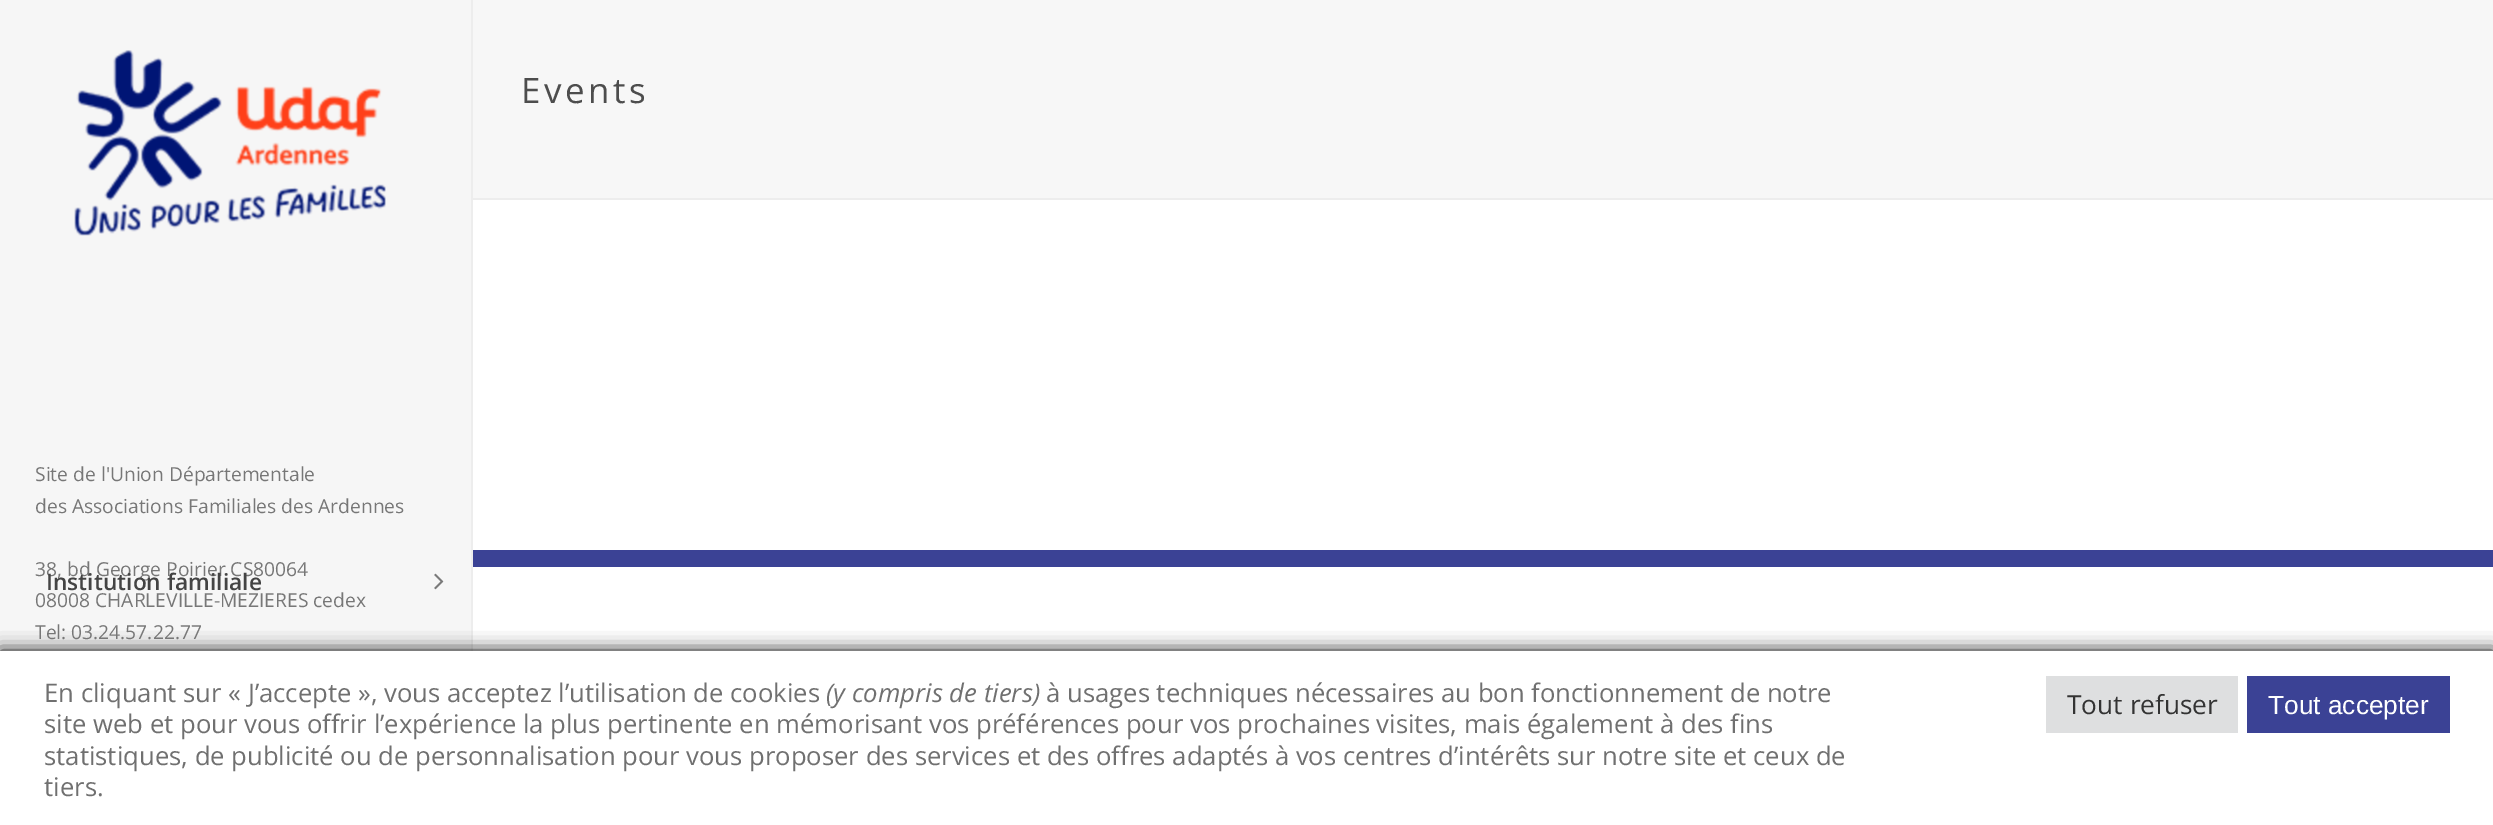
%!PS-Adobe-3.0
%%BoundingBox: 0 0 2493 825
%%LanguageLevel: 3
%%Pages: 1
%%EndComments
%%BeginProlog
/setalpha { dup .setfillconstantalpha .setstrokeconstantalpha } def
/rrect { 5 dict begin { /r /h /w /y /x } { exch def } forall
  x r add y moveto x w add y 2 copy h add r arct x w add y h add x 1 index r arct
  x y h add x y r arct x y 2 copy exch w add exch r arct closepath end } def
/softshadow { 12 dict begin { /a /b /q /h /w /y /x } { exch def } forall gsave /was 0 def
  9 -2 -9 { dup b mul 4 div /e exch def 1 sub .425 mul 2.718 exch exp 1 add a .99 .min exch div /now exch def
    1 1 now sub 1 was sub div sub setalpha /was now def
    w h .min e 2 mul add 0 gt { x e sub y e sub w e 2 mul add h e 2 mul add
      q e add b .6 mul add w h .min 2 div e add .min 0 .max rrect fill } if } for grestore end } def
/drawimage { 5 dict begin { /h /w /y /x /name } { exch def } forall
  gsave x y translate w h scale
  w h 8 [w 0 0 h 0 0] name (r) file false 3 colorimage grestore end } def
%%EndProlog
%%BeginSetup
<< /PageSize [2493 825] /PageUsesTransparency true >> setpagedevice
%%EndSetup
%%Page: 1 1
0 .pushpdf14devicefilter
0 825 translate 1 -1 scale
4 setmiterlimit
1 setgray
0 0 2493 825 rectfill
0.969 setgray
473 0 2020 198 rectfill
0.929 setgray
473 198 2020 2 rectfill
471 0 2 651 rectfill
(images/1.raw) 0 0 471 651 drawimage
(images/2.raw) 74 50 312 186 drawimage
(images/3.raw) 434 573 10 17 drawimage
0.231 0.259 0.584 setrgbcolor
473 550 2020 17 rectfill
0 setgray
0 651 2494 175 0 9 1 softshadow
1 setgray
0 651 2493 174 rectfill
0.871 0.875 0.878 setrgbcolor
2046 676 192 57 rectfill
0.231 0.259 0.584 setrgbcolor
2247 676 203 57 rectfill
/OpenSans-Regular [35 0 0 -35 0 0] selectfont
0.302 setgray
521 103 moveto 3.5 0 (Events) ashow
/OpenSans-Regular [19.25 0 0 -19.25 0 0] selectfont
0.467 setgray
35 481 moveto (Site de l'Union Départementale) show
35 513 moveto (des Associations Familiales des Ardennes) show
35 576 moveto (38, bd George Poirier CS80064) show
35 607 moveto (08008 CHARLEVILLE-MEZIERES cedex) show
35 639 moveto (Tel: 03.24.57.22.77) show
/OpenSans-SemiBold [22.75 0 0 -22.75 0 0] selectfont
0.267 setgray
46 590 moveto (Institution familiale) show
/OpenSans-Regular [25.67 0 0 -25.67 0 0] selectfont
0.439 setgray
44 702 moveto (En cliquant sur « J’accepte », vous acceptez l’utilisation de cookies) show
/OpenSans-Italic [25.67 0 0 -25.67 0 0] selectfont
826 702 moveto (\(y compris de tiers\)) show
/OpenSans-Regular [25.67 0 0 -25.67 0 0] selectfont
1046 702 moveto (à usages techniques nécessaires au bon fonctionnement de notre) show
44 733 moveto (site web et pour vous offrir l’expérience la plus pertinente en mémorisant vos préférences pour vos prochaines visites, mais également à des fins) show
44 765 moveto (statistiques, de publicité ou de personnalisation pour vous proposer des services et des offres adaptés à vos centres d’intérêts sur notre site et ceux de) show
44 796 moveto (tiers.) show
/OpenSans-Regular [26.25 0 0 -26.25 0 0] selectfont
0.2 setgray
2067 714 moveto (Tout refuser) show
/LiberationSans-Regular [26.25 0 0 -26.25 0 0] selectfont
1 setgray
2268 714 moveto (Tout accepter) show
.poppdf14devicefilter showpage
%%EOF
